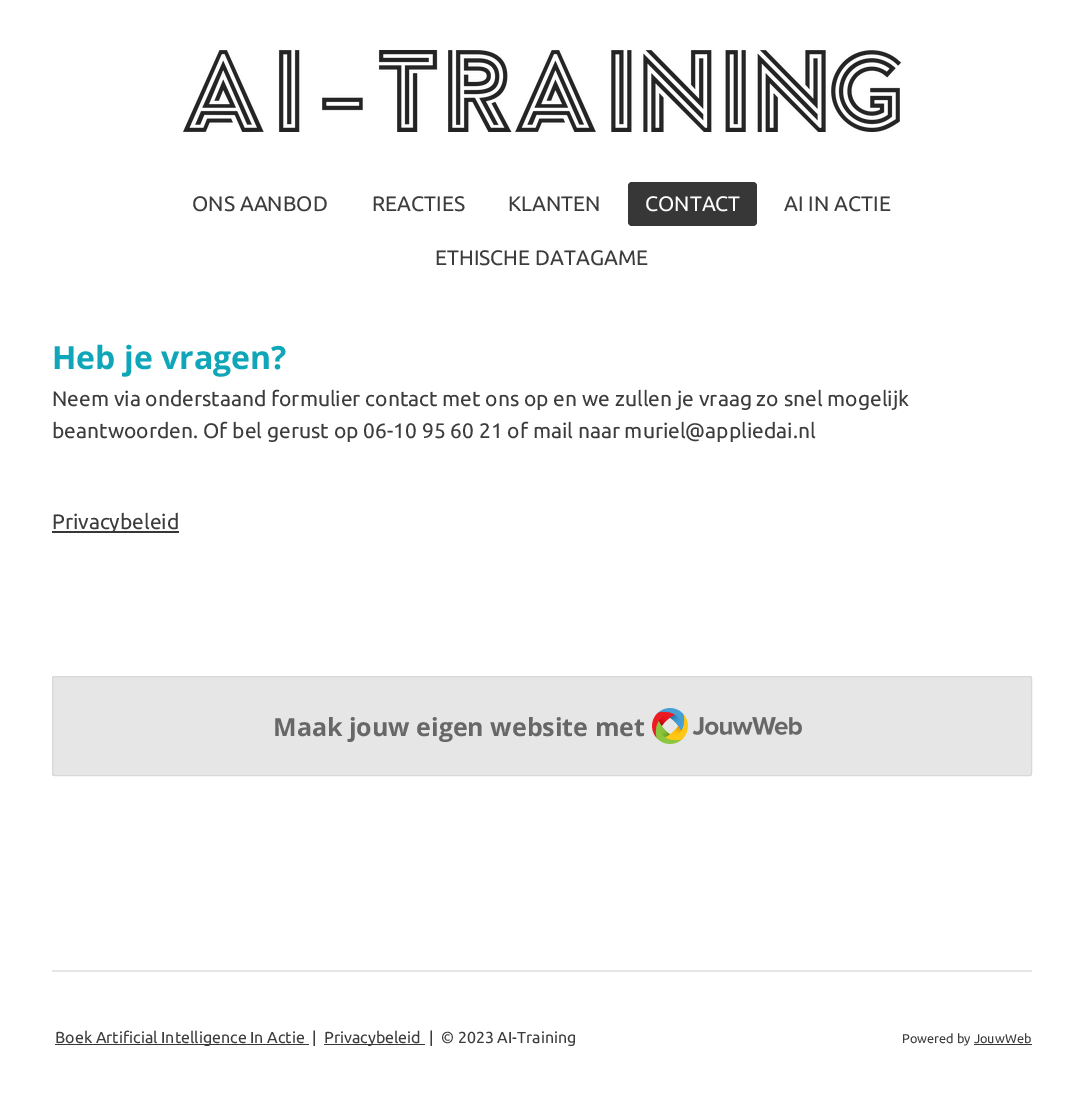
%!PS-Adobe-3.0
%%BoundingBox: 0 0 1083 1102
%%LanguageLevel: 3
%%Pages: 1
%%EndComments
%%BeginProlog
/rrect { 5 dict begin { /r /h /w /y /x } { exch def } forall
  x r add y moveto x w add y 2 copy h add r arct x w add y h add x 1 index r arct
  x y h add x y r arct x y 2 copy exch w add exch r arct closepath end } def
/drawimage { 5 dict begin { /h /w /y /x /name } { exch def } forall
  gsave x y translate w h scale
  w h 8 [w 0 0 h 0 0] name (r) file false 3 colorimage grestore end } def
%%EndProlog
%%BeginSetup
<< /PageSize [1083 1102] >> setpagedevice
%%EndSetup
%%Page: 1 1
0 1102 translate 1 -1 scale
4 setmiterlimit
1 setgray
0 0 1083 1102 rectfill
(images/1.raw) 183 50 718 82 drawimage
0.216 setgray
628 182 129 44 4 rrect fill
52 531 127 2 rectfill
0.902 setgray
52 676 980 100 rectfill
0.847 setgray
52.5 676.5 979 99 2.5 rrect stroke
(images/2.raw) 652 708 150 36 drawimage
0.902 setgray
52 970 980 2 rectfill
0.216 setgray
55 1044 254 1 rectfill
324 1044 101 1 rectfill
/Ubuntu-Regular [21 0 0 -21 0 0] selectfont
0.235 setgray
192 211 moveto (ONS AANBOD) show
372 211 moveto (REACTIES) show
508 211 moveto (KLANTEN) show
1 setgray
645 211 moveto (CONTACT) show
0.235 setgray
784 211 moveto (AI IN ACTIE) show
435 265 moveto (ETHISCHE DATAGAME) show
/OpenSans-Bold [32 0 0 -32 0 0] selectfont
0.055 0.651 0.722 setrgbcolor
52 369 moveto (Heb je vragen?) show
/Ubuntu-Regular [21 0 0 -21 0 0] selectfont
0.235 setgray
52 406 moveto (Neem via onderstaand formulier contact met ons op en we zullen je vraag zo snel mogelijk) show
52 438 moveto (beantwoorden. Of bel gerust op 06-10 95 60 21 of mail naar muriel@appliedai.nl) show
52 529 moveto (Privacybeleid) show
/OpenSans-Bold [25 0 0 -25 0 0] selectfont
0.404 setgray
273 736 moveto (Maak jouw eigen website met) show
/Ubuntu-Regular [16 0 0 -16 0 0] selectfont
0.235 setgray
55 1043 moveto (Boek Artificial Intelligence In Actie) show
312 1043 moveto (|) show
324 1043 moveto (Privacybeleid) show
429 1043 moveto (|  © 2023 AI-Training) show
/Ubuntu-Regular [12.75 0 0 -12.75 0 0] selectfont
902 1043 moveto (Powered by JouwWeb) show
0.216 setgray
974 1044 58 1 rectfill
showpage
%%EOF
